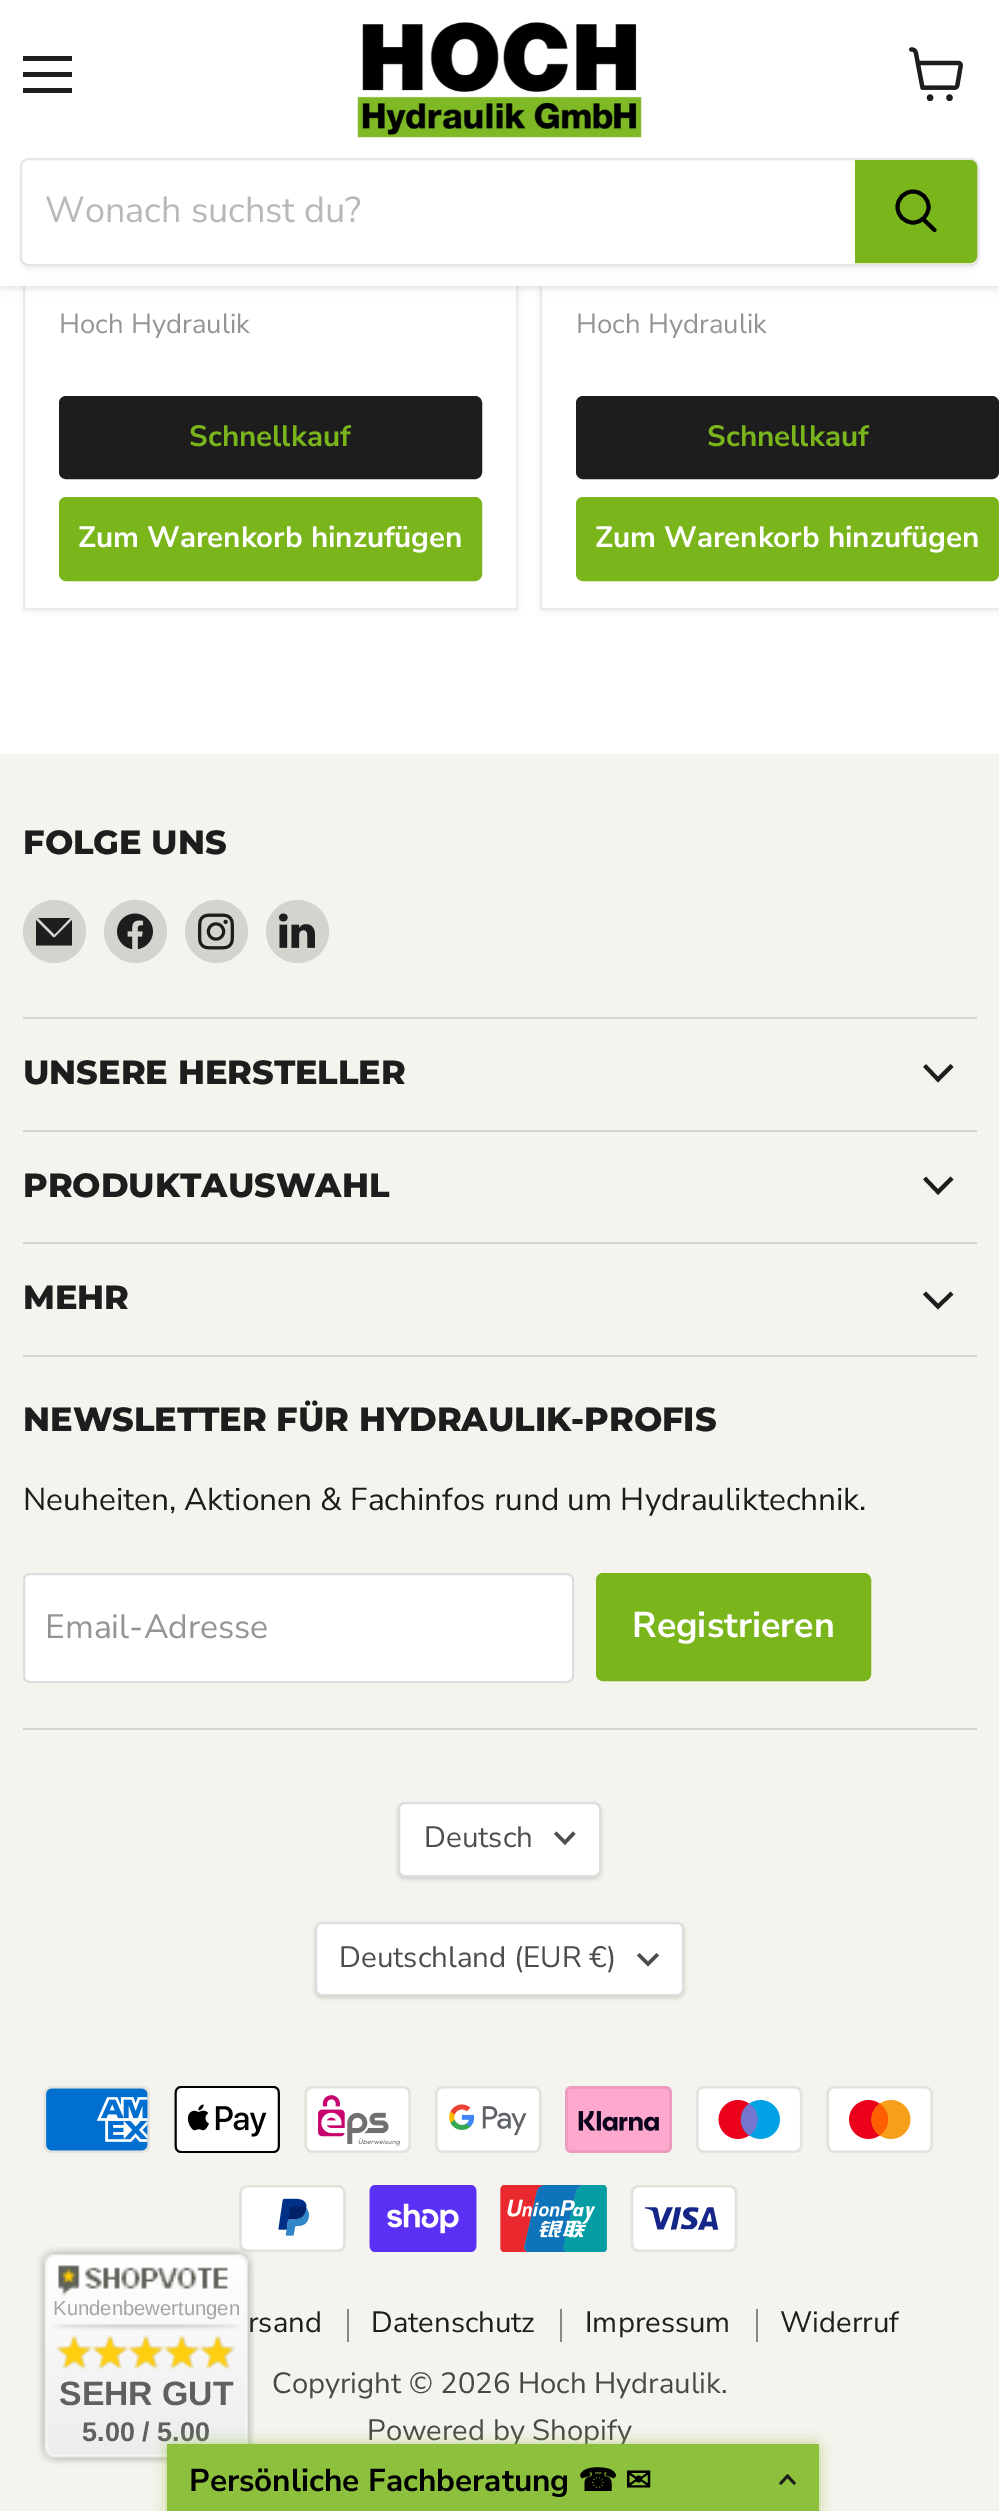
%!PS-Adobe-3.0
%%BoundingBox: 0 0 999 2511
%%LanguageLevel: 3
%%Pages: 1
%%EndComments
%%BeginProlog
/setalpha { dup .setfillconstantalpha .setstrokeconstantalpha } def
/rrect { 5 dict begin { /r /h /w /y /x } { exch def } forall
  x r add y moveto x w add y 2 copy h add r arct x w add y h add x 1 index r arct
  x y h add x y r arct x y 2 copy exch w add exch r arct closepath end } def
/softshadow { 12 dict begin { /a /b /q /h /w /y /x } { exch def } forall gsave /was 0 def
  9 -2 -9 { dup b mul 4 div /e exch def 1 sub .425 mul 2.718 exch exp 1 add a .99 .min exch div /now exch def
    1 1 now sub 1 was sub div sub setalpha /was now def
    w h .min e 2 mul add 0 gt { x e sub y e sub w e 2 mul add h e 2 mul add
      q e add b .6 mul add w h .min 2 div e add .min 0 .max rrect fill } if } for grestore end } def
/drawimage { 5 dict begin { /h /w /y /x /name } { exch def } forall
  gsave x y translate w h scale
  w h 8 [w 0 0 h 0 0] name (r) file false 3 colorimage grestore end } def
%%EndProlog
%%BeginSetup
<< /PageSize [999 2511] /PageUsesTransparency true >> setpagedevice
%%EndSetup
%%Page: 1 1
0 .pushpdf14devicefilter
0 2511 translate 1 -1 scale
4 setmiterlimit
1 setgray
0 0 999 2511 rectfill
0.502 setgray
23 -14 495 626 0 4.5 0.11 softshadow
1 setgray
25 286 491 322 rectfill
0.922 setgray
2 setlinewidth
24 -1 493 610 rectstroke
0.502 setgray
540 -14 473 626 0 4.5 0.11 softshadow
1 setgray
542 286 457 322 rectfill
0.922 setgray
541 -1 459 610 rectstroke
0.502 setgray
0 2 999 286 0 4.5 0.25 softshadow
1 setgray
0 0 999 286 rectfill
0.114 setgray
23 56 49 5 rectfill
23 72 49 5 rectfill
23 88 49 5 rectfill
(images/1.raw) 909 47 54 54 drawimage
(images/2.raw) 357 22 285 116 drawimage
gsave
newpath 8 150 moveto 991 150 lineto 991 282 lineto 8 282 lineto closepath 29 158 moveto 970 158 lineto 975 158 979 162 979 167 curveto 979 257 lineto 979 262 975 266 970 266 curveto 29 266 lineto 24 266 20 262 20 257 curveto 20 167 lineto 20 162 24 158 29 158 curveto closepath eoclip newpath
0.502 setgray
20 162 959 108 9 3.5 0.11 softshadow
grestore
0.2 setalpha
0.502 setgray
21 159 957 106 8 rrect stroke
1 setalpha
0.482 0.71 0.11 setrgbcolor
newpath 856 161 moveto 970 161 lineto 973.5 161 976 163.5 976 167 curveto 976 256 lineto 976 259.5 973.5 262 970 262 curveto 856 262 lineto closepath gsave fill grestore
stroke
0 setgray
3.9 setlinewidth
1 setlinecap
newpath 934.5 230 moveto 923.5 219.5 lineto stroke
0 setlinecap
newpath 913 207 15.5 0 360 arc closepath stroke
0.114 setgray
60 397 421 81 6 rrect gsave fill grestore
2 setlinewidth
stroke
0.482 0.71 0.11 setrgbcolor
60 498 421 82 6 rrect gsave fill grestore
stroke
0.114 setgray
577 397 421 81 6 rrect gsave fill grestore
stroke
0.482 0.71 0.11 setrgbcolor
577 498 421 82 6 rrect gsave fill grestore
stroke
0.961 0.953 0.929 setrgbcolor
0 754 999 1757 rectfill
0.835 0.827 0.808 setrgbcolor
23 1017 954 2 rectfill
newpath 54.5 931.5 31.5 0 360 arc closepath fill
0.114 setgray
newpath 55 937 moveto 53.5 939 50.5 934.5 50.5 934.5 curveto 36 920 lineto 36 945.5 lineto 72 945.5 lineto 72 920 lineto closepath fill
newpath 70 918 moveto 38 918 lineto 54.5 934.5 lineto closepath fill
0.835 0.827 0.808 setrgbcolor
newpath 135.5 931.5 31.5 0 360 arc closepath fill
(images/3.raw) 117 913 36 37 drawimage
newpath 216.5 931.5 31.5 0 360 arc closepath fill
(images/4.raw) 198 913 36 37 drawimage
newpath 297.5 931.5 31.5 0 360 arc closepath fill
(images/5.raw) 279 913 36 35 drawimage
23 1130 954 2 rectfill
0.114 setgray
3.9 setlinewidth
2 setlinecap
newpath 938 1079.5 moveto 950.5 1067 lineto 938 1079.5 moveto 926 1067 lineto stroke
0.835 0.827 0.808 setrgbcolor
23 1242 954 2 rectfill
0.114 setgray
newpath 938 1192 moveto 950.5 1179.5 lineto 938 1192 moveto 926 1179.5 lineto stroke
0.835 0.827 0.808 setrgbcolor
23 1355 954 2 rectfill
0.114 setgray
newpath 938 1306.5 moveto 950.5 1294.5 lineto 938 1306.5 moveto 926 1294.5 lineto stroke
0.835 0.827 0.808 setrgbcolor
23 1728 954 2 rectfill
1 setgray
24 1574 549 108 6 rrect gsave fill grestore
0.867 setgray
2 setlinewidth
0 setlinecap
stroke
0.482 0.71 0.11 setrgbcolor
597 1574 273 106 6 rrect gsave fill grestore
stroke
0 setgray
398 1805 203 74 7 2 0.15 softshadow
1 setgray
399 1803 201 73 6 rrect gsave fill grestore
0.867 setgray
stroke
0.302 setgray
3.5 setlinewidth
2 setlinecap
newpath 565 1842.5 moveto 573 1834 lineto 565 1842.5 moveto 556.5 1834 lineto stroke
0 setgray
315 1924 369 74 7 2 0.15 softshadow
1 setgray
316 1923 367 72 6 rrect gsave fill grestore
0.867 setgray
2 setlinewidth
0 setlinecap
stroke
0.302 setgray
3.5 setlinewidth
2 setlinecap
newpath 648 1964 moveto 656.5 1955.5 lineto 648 1964 moveto 639.5 1955.5 lineto stroke
(images/6.raw) 43 2086 107 67 drawimage
(images/7.raw) 174 2086 106 67 drawimage
(images/8.raw) 304 2086 107 67 drawimage
(images/9.raw) 435 2086 107 67 drawimage
(images/10.raw) 565 2086 107 67 drawimage
(images/11.raw) 696 2086 107 67 drawimage
(images/12.raw) 826 2086 107 67 drawimage
(images/13.raw) 239 2185 107 67 drawimage
(images/14.raw) 369 2185 108 67 drawimage
(images/15.raw) 500 2185 107 67 drawimage
(images/16.raw) 630 2185 108 67 drawimage
0.537 0.533 0.522 setrgbcolor
347 2309 2 33 rectfill
560 2309 2 33 rectfill
756 2309 2 33 rectfill
/NunitoSans-Regular [36 0 0 -36 0 0] selectfont
0.722 setgray
45 222 moveto (Wonach suchst du?) show
/NunitoSans-Regular [27.5 0 0 -27.5 0 0] selectfont
0.58 setgray
59 333 moveto (Hoch Hydraulik) show
/NunitoSans-Bold [29.5 0 0 -29.5 0 0] selectfont
0.482 0.71 0.11 setrgbcolor
189 446 moveto (Schnellkauf) show
1 setgray
78 547 moveto (Zum Warenkorb hinzufügen) show
/NunitoSans-Regular [27.5 0 0 -27.5 0 0] selectfont
0.58 setgray
576 333 moveto (Hoch Hydraulik) show
/NunitoSans-Bold [29.5 0 0 -29.5 0 0] selectfont
0.482 0.71 0.11 setrgbcolor
707 446 moveto (Schnellkauf) show
1 setgray
595 547 moveto (Zum Warenkorb hinzufügen) show
/Montserrat-ExtraBold [33.5 0 0 -33.5 0 0] selectfont
0.114 setgray
23 854 moveto (FOLGE UNS) show
23 1084 moveto (UNSERE HERSTELLER) show
23 1197 moveto (PRODUKTAUSWAHL) show
23 1309 moveto (MEHR) show
23 1431 moveto (NEWSLETTER FÜR HYDRAULIK-PROFIS) show
/NunitoSans-Regular [31.65 0 0 -31.65 0 0] selectfont
23 1510 moveto (Neuheiten, Aktionen & Fachinfos rund um Hydrauliktechnik.) show
/NunitoSans-Regular [33.75 0 0 -33.75 0 0] selectfont
0.58 setgray
45 1638 moveto (Email-Adresse) show
/NunitoSans-Bold [35.75 0 0 -35.75 0 0] selectfont
1 setgray
632 1637 moveto (Registrieren) show
/NunitoSans-Regular [29.5 0 0 -29.5 0 0] selectfont
0.302 setgray
424 1847 moveto (Deutsch) show
339 1967 moveto (Deutschland \(EUR €\)) show
/NunitoSans-Regular [29.25 0 0 -29.25 0 0] selectfont
0.114 setgray
248 2332 moveto (rsand) show
371 2332 moveto (Datenschutz) show
585 2332 moveto (Impressum) show
780 2332 moveto (Widerruf) show
0.282 0.282 0.278 setrgbcolor
272 2393 moveto (Copyright © 2026 Hoch Hydraulik.) show
367 2440 moveto (Powered by Shopify) show
(images/17.raw) 37 2247 218 218 drawimage
/LiberationSans-Regular [20.25 0 0 -20.25 0 0] selectfont
0.643 setgray
53 2315 moveto (Kundenbewertungen) show
(images/18.raw) 56 2335 178 35 drawimage
/LiberationSans-Bold [33.75 0 0 -33.75 0 0] selectfont
0.376 setgray
59 2405 moveto (SEHR GUT) show
/LiberationSans-Bold [27 0 0 -27 0 0] selectfont
82 2441 moveto (5.00 / 5.00) show
0.553 0.757 0.239 setrgbcolor
171 2448 644 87 0 8 1 softshadow
167 2444 652 67 rectfill
/NunitoSans-Bold [31.5 0 0 -31.5 0 0] selectfont
0 setgray
189 2491 moveto (Persönliche Fachberatung) show
/DejaVuSans-Bold [31.5 0 0 -31.5 0 0] selectfont
578 2491 moveto -2 0 32 (☎ ✉) widthshow
0.114 setgray
2.8 setlinewidth
newpath 787.5 2476 moveto 781 2483 lineto 787.5 2476 moveto 794 2483 lineto stroke
.poppdf14devicefilter showpage
%%EOF
